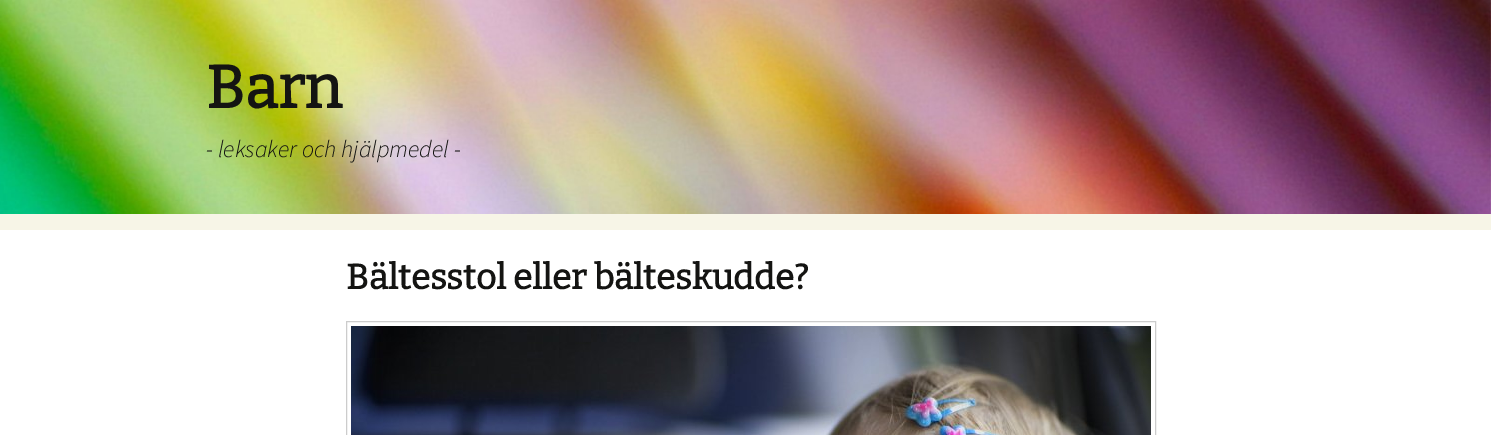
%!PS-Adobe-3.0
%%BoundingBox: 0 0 1491 435
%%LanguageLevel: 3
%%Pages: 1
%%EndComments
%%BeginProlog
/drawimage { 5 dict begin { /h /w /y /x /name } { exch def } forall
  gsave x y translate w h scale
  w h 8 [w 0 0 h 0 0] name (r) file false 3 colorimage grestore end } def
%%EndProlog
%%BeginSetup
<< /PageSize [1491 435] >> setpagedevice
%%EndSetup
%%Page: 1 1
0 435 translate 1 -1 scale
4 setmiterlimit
1 setgray
0 0 1491 435 rectfill
0.969 0.961 0.906 setrgbcolor
0 214 1491 16 rectfill
(images/1.raw) 0 0 1491 214 drawimage
0.8 setgray
346.5 321.5 809 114 rectstroke
(images/2.raw) 351 326 800 109 drawimage
/Bitter-Bold [60 0 0 -60 0 0] selectfont
0.078 0.078 0.071 setrgbcolor
206 108 moveto (Barn) show
/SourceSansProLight-LightItalic [24 0 0 -24 0 0] selectfont
206 157 moveto (- leksaker och hjälpmedel -) show
/Bitter-Bold [35 0 0 -35 0 0] selectfont
346 289 moveto (Bältesstol eller bälteskudde?) show
showpage
%%EOF
